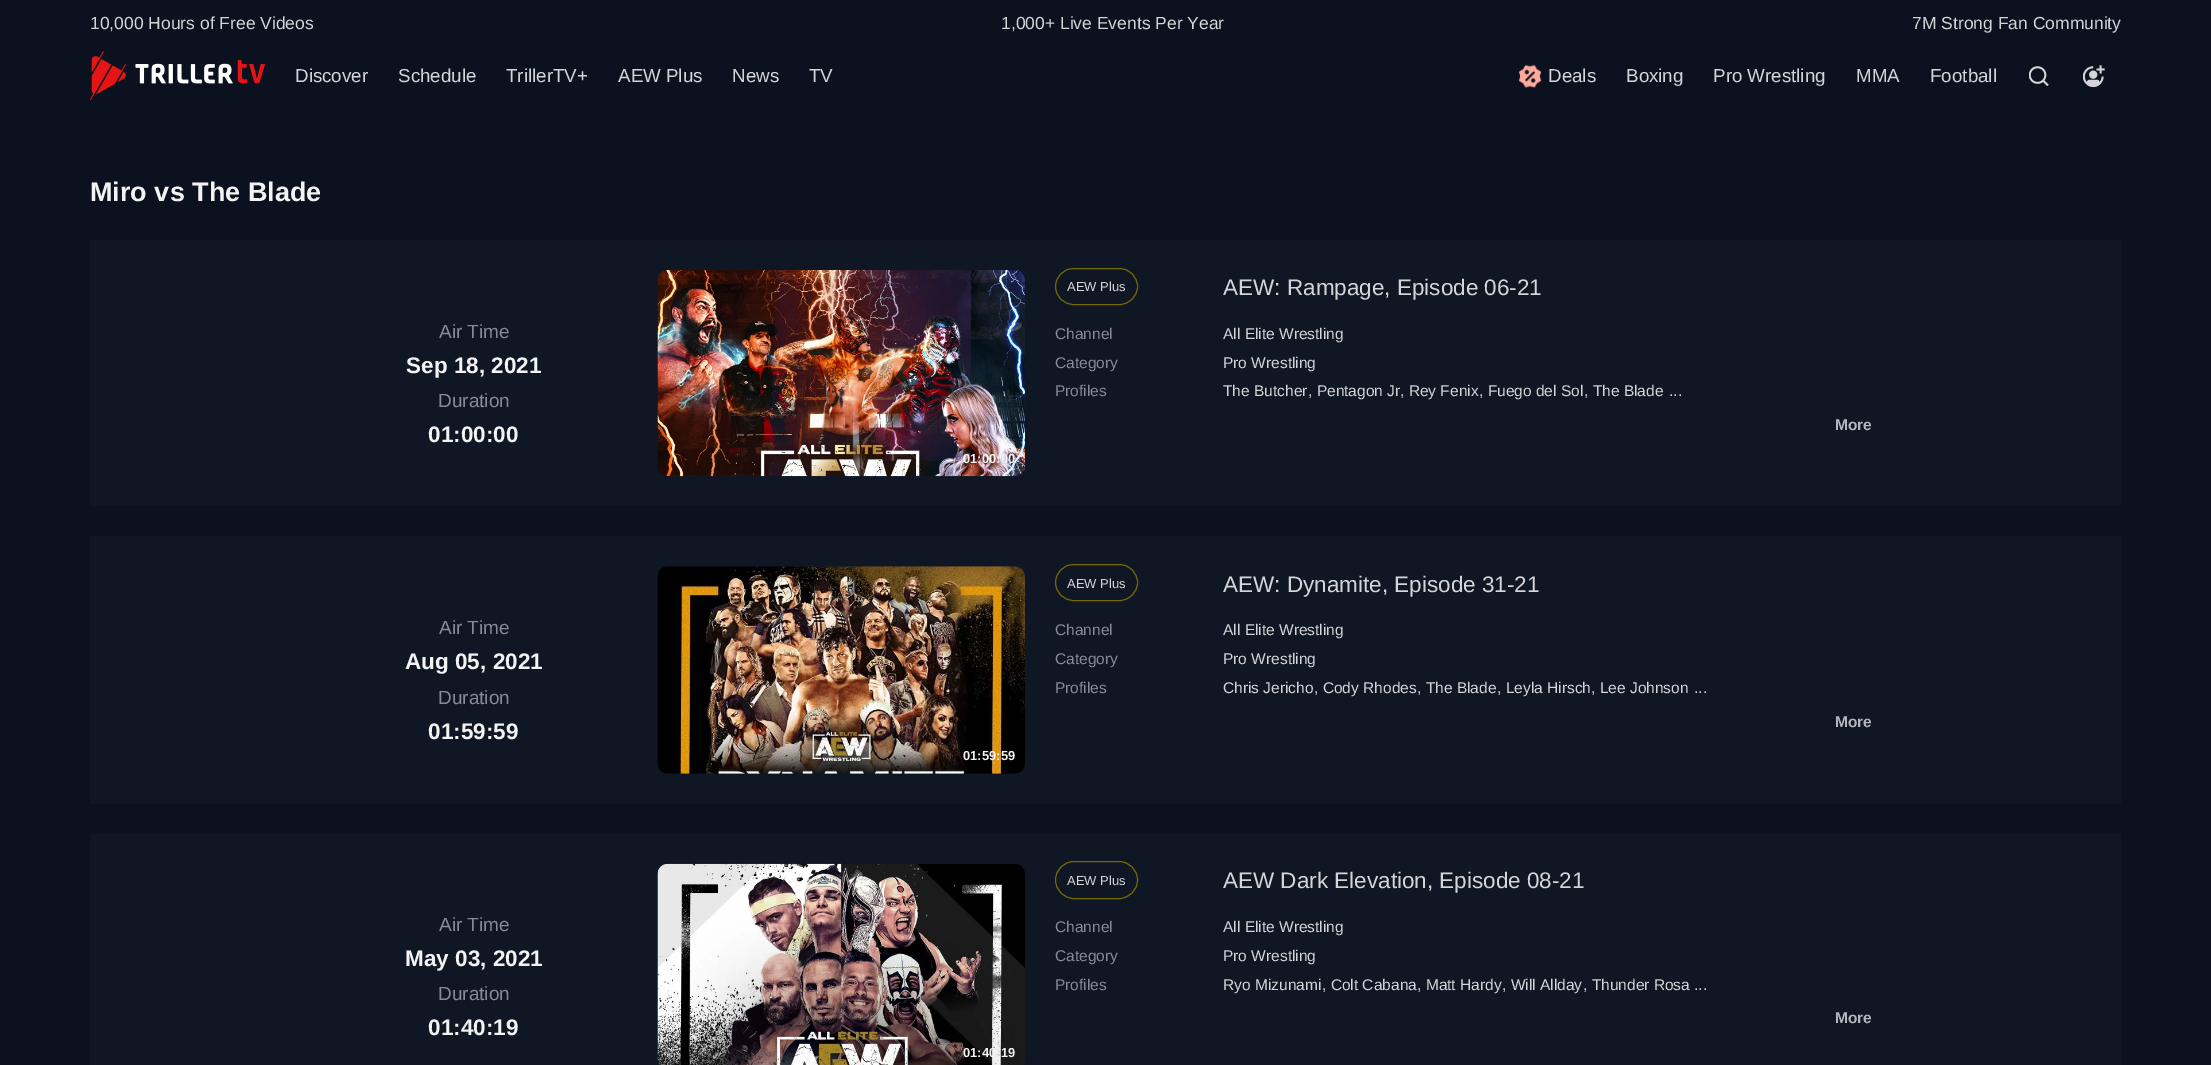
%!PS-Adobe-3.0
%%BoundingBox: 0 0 2211 1065
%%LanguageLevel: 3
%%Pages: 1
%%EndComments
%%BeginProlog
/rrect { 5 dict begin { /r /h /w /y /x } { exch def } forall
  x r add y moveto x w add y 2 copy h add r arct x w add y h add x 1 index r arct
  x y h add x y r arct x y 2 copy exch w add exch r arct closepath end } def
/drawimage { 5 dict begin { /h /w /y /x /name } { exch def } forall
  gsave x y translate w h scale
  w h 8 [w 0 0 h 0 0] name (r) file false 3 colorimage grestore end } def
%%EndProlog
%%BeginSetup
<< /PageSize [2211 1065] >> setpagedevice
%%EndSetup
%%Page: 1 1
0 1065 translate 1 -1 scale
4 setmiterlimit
0.043 0.067 0.118 setrgbcolor
0 0 2211 1065 rectfill
(images/1.raw) 90 51 175 49 drawimage
(images/2.raw) 1518 65 24 23 drawimage
(images/3.raw) 2029 66 20 20 drawimage
(images/4.raw) 2083 65 22 22 drawimage
0.059 0.086 0.141 setrgbcolor
90 240 2031 266 rectfill
0.451 0.408 0.02 setrgbcolor
1055.5 268.5 82 36 18 rrect stroke
(images/5.raw) 657 270 368 207 drawimage
0.059 0.086 0.141 setrgbcolor
90 536 2031 268 rectfill
0.451 0.408 0.02 setrgbcolor
1055.5 564.5 82 36 18 rrect stroke
(images/6.raw) 657 566 368 208 drawimage
0.059 0.086 0.141 setrgbcolor
90 834 2031 231 rectfill
0.451 0.408 0.02 setrgbcolor
1055.5 861.5 82 37 18.5 rrect stroke
(images/7.raw) 657 863 368 202 drawimage
/LiberationSans-Regular [17.5 0 0 -17.5 0 0] selectfont
0.827 0.835 0.847 setrgbcolor
90 29 moveto (10,000 Hours of Free Videos) show
1001 29 moveto (1,000+ Live Events Per Year) show
1912 29 moveto (7M Strong Fan Community) show
/LiberationSans-Regular [18.75 0 0 -18.75 0 0] selectfont
295 82 moveto (Discover) show
398 82 moveto (Schedule) show
506 82 moveto (TrillerTV+) show
618 82 moveto (AEW Plus) show
732 82 moveto (News) show
809 82 moveto (TV) show
1548 82 moveto (Deals) show
1626 82 moveto (Boxing) show
1713 82 moveto (Pro Wrestling) show
1856 82 moveto (MMA) show
1930 82 moveto (Football) show
/LiberationSans-Bold [27 0 0 -27 0 0] selectfont
0.953 setgray
90 201 moveto (Miro vs The Blade) show
/LiberationSans-Regular [19 0 0 -19 0 0] selectfont
0.518 0.545 0.604 setrgbcolor
439 338 moveto (Air Time) show
/LiberationSans-Bold [22.5 0 0 -22.5 0 0] selectfont
0.953 setgray
406 373 moveto (Sep 18, 2021) show
/LiberationSans-Regular [19 0 0 -19 0 0] selectfont
0.518 0.545 0.604 setrgbcolor
438 407 moveto (Duration) show
/LiberationSans-Bold [22.5 0 0 -22.5 0 0] selectfont
0.953 setgray
428 442 moveto (01:00:00) show
/LiberationSans-Regular [13 0 0 -13 0 0] selectfont
0.827 0.835 0.847 setrgbcolor
1067 291 moveto (AEW Plus) show
/LiberationSans-Regular [22.5 0 0 -22.5 0 0] selectfont
1223 295 moveto (AEW: Rampage, Episode 06-21) show
/LiberationSans-Regular [15.5 0 0 -15.5 0 0] selectfont
0.518 0.545 0.604 setrgbcolor
1055 339 moveto (Channel) show
0.827 0.835 0.847 setrgbcolor
1223 339 moveto (All Elite Wrestling) show
0.518 0.545 0.604 setrgbcolor
1055 368 moveto (Category) show
0.827 0.835 0.847 setrgbcolor
1223 368 moveto (Pro Wrestling) show
0.518 0.545 0.604 setrgbcolor
1055 396 moveto (Profiles) show
0.827 0.835 0.847 setrgbcolor
1223 396 moveto (The Butcher) show
1308 396 moveto (, Pentagon Jr) show
1400 396 moveto (, Rey Fenix) show
1479 396 moveto (, Fuego del Sol) show
1584 396 moveto (, The Blade) show
1669 396 moveto (...) show
/LiberationSans-Bold [15.5 0 0 -15.5 0 0] selectfont
0.706 0.722 0.757 setrgbcolor
1835 430 moveto (More) show
/LiberationSans-Bold [13 0 0 -13 0 0] selectfont
0.953 setgray
963 463 moveto (01:00:00) show
/LiberationSans-Regular [19 0 0 -19 0 0] selectfont
0.518 0.545 0.604 setrgbcolor
439 634 moveto (Air Time) show
/LiberationSans-Bold [22.5 0 0 -22.5 0 0] selectfont
0.953 setgray
405 669 moveto (Aug 05, 2021) show
/LiberationSans-Regular [19 0 0 -19 0 0] selectfont
0.518 0.545 0.604 setrgbcolor
438 704 moveto (Duration) show
/LiberationSans-Bold [22.5 0 0 -22.5 0 0] selectfont
0.953 setgray
428 739 moveto (01:59:59) show
/LiberationSans-Regular [13 0 0 -13 0 0] selectfont
0.827 0.835 0.847 setrgbcolor
1067 588 moveto (AEW Plus) show
/LiberationSans-Regular [22.5 0 0 -22.5 0 0] selectfont
1223 592 moveto (AEW: Dynamite, Episode 31-21) show
/LiberationSans-Regular [15.5 0 0 -15.5 0 0] selectfont
0.518 0.545 0.604 setrgbcolor
1055 635 moveto (Channel) show
0.827 0.835 0.847 setrgbcolor
1223 635 moveto (All Elite Wrestling) show
0.518 0.545 0.604 setrgbcolor
1055 664 moveto (Category) show
0.827 0.835 0.847 setrgbcolor
1223 664 moveto (Pro Wrestling) show
0.518 0.545 0.604 setrgbcolor
1055 693 moveto (Profiles) show
0.827 0.835 0.847 setrgbcolor
1223 693 moveto (Chris Jericho) show
1314 693 moveto (, Cody Rhodes) show
1417 693 moveto (, The Blade) show
1497 693 moveto (, Leyla Hirsch) show
1591 693 moveto (, Lee Johnson) show
1694 693 moveto (...) show
/LiberationSans-Bold [15.5 0 0 -15.5 0 0] selectfont
0.706 0.722 0.757 setrgbcolor
1835 727 moveto (More) show
/LiberationSans-Bold [13 0 0 -13 0 0] selectfont
0.953 setgray
963 760 moveto (01:59:59) show
/LiberationSans-Regular [19 0 0 -19 0 0] selectfont
0.518 0.545 0.604 setrgbcolor
439 931 moveto (Air Time) show
/LiberationSans-Bold [22.5 0 0 -22.5 0 0] selectfont
0.953 setgray
405 966 moveto (May 03, 2021) show
/LiberationSans-Regular [19 0 0 -19 0 0] selectfont
0.518 0.545 0.604 setrgbcolor
438 1000 moveto (Duration) show
/LiberationSans-Bold [22.5 0 0 -22.5 0 0] selectfont
0.953 setgray
428 1035 moveto (01:40:19) show
/LiberationSans-Regular [13 0 0 -13 0 0] selectfont
0.827 0.835 0.847 setrgbcolor
1067 885 moveto (AEW Plus) show
/LiberationSans-Regular [22.5 0 0 -22.5 0 0] selectfont
1223 888 moveto (AEW Dark Elevation, Episode 08-21) show
/LiberationSans-Regular [15.5 0 0 -15.5 0 0] selectfont
0.518 0.545 0.604 setrgbcolor
1055 932 moveto (Channel) show
0.827 0.835 0.847 setrgbcolor
1223 932 moveto (All Elite Wrestling) show
0.518 0.545 0.604 setrgbcolor
1055 961 moveto (Category) show
0.827 0.835 0.847 setrgbcolor
1223 961 moveto (Pro Wrestling) show
0.518 0.545 0.604 setrgbcolor
1055 990 moveto (Profiles) show
0.827 0.835 0.847 setrgbcolor
1223 990 moveto (Ryo Mizunami) show
1322 990 moveto (, Colt Cabana) show
1417 990 moveto (, Matt Hardy) show
1502 990 moveto (, Will Allday) show
1583 990 moveto (, Thunder Rosa) show
1694 990 moveto (...) show
/LiberationSans-Bold [15.5 0 0 -15.5 0 0] selectfont
0.706 0.722 0.757 setrgbcolor
1835 1023 moveto (More) show
/LiberationSans-Bold [13 0 0 -13 0 0] selectfont
0.953 setgray
963 1057 moveto (01:40:19) show
showpage
%%EOF
